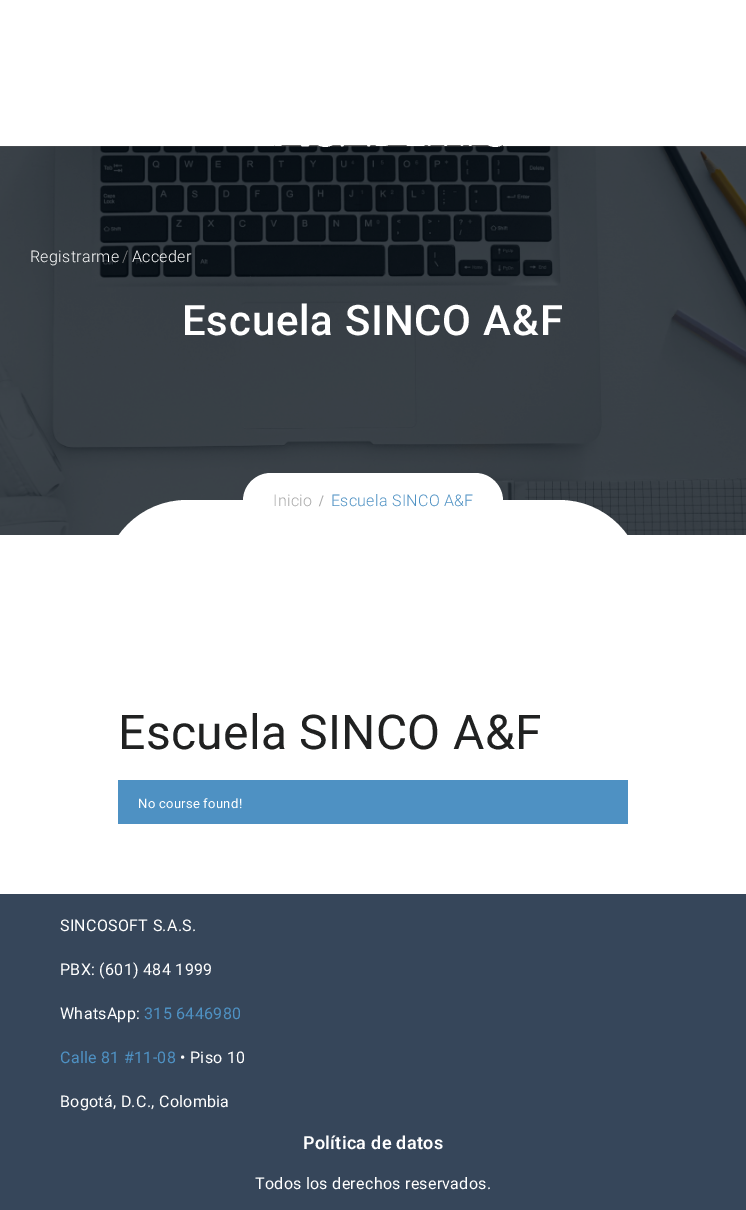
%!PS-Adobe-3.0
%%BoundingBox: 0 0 746 1210
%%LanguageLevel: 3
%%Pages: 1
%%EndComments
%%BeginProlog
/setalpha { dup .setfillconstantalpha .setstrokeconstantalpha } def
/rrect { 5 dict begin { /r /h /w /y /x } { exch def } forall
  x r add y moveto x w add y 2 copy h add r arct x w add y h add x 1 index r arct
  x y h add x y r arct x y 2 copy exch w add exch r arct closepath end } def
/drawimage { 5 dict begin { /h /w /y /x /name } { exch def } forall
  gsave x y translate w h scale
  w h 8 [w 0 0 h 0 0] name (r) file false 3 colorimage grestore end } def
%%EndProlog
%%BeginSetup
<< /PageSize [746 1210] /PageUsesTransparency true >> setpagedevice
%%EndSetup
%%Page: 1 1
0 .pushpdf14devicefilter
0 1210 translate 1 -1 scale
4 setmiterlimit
1 setgray
0 0 746 1210 rectfill
(images/2.raw) 0 146 746 389 drawimage
(images/1.raw) 274 145 229 2 drawimage
0.05 setalpha
0 setgray
359 182 28 33 rectfill
1 setalpha
1 setgray
newpath 187 500 moveto 559 500 lineto 605.5 500 643 537.5 643 584 curveto 643 535 lineto 103 535 lineto 103 584 lineto 103 537.5 140.5 500 187 500 curveto closepath fill
243 473 260 56 28 rrect fill
0.306 0.569 0.765 setrgbcolor
118 780 510 44 rectfill
0.212 0.275 0.353 setrgbcolor
0 894 746 316 rectfill
/Roboto-Light [16 0 0 -16 0 0] selectfont
1 setgray
30 262 moveto 0.3 0 (Registrarme) ashow
0.533 setgray
122 262 moveto 0.3 0 (/) ashow
1 setgray
132 262 moveto 0.3 0 (Acceder) ashow
/Roboto-Medium [42 0 0 -42 0 0] selectfont
182 335 moveto 0.75 0 (Escuela SINCO A&F) ashow
/Roboto-Light [16 0 0 -16 0 0] selectfont
0.663 setgray
273 506 moveto 0.3 0 (Inicio) ashow
/LiberationSerif-Bold [16 0 0 -16 0 0] selectfont
319 506 moveto 0.3 0 (/) ashow
/Roboto-Light [16 0 0 -16 0 0] selectfont
0.306 0.569 0.765 setrgbcolor
331 506 moveto 0.3 0 (Escuela SINCO A&F) ashow
/Roboto-Regular [48 0 0 -48 0 0] selectfont
0.125 0.129 0.129 setrgbcolor
118 749 moveto 0.3 0 (Escuela SINCO A&F) ashow
/Roboto-Regular [13 0 0 -13 0 0] selectfont
1 setgray
138 808 moveto 0.3 0 (No course found!) ashow
/Roboto-Regular [16 0 0 -16 0 0] selectfont
60 931 moveto 0.3 0 (SINCOSOFT S.A.S.) ashow
60 975 moveto 0.3 0 (PBX: \(601\) 484 1999) ashow
60 1019 moveto 0.3 0 (WhatsApp:) ashow
0.306 0.569 0.765 setrgbcolor
144 1019 moveto 0.3 0 (315 6446980) ashow
60 1063 moveto 0.3 0 (Calle 81 #11-08) ashow
1 setgray
180 1063 moveto 0.3 0 (• Piso 10) ashow
60 1107 moveto 0.3 0 (Bogotá, D.C., Colombia) ashow
/Roboto-SemiBold [18 0 0 -18 0 0] selectfont
303 1149 moveto 0.3 0 (Política de datos) ashow
/Roboto-Regular [16 0 0 -16 0 0] selectfont
255 1189 moveto 0.3 0 (Todos los derechos reservados.) ashow
.poppdf14devicefilter showpage
%%EOF
